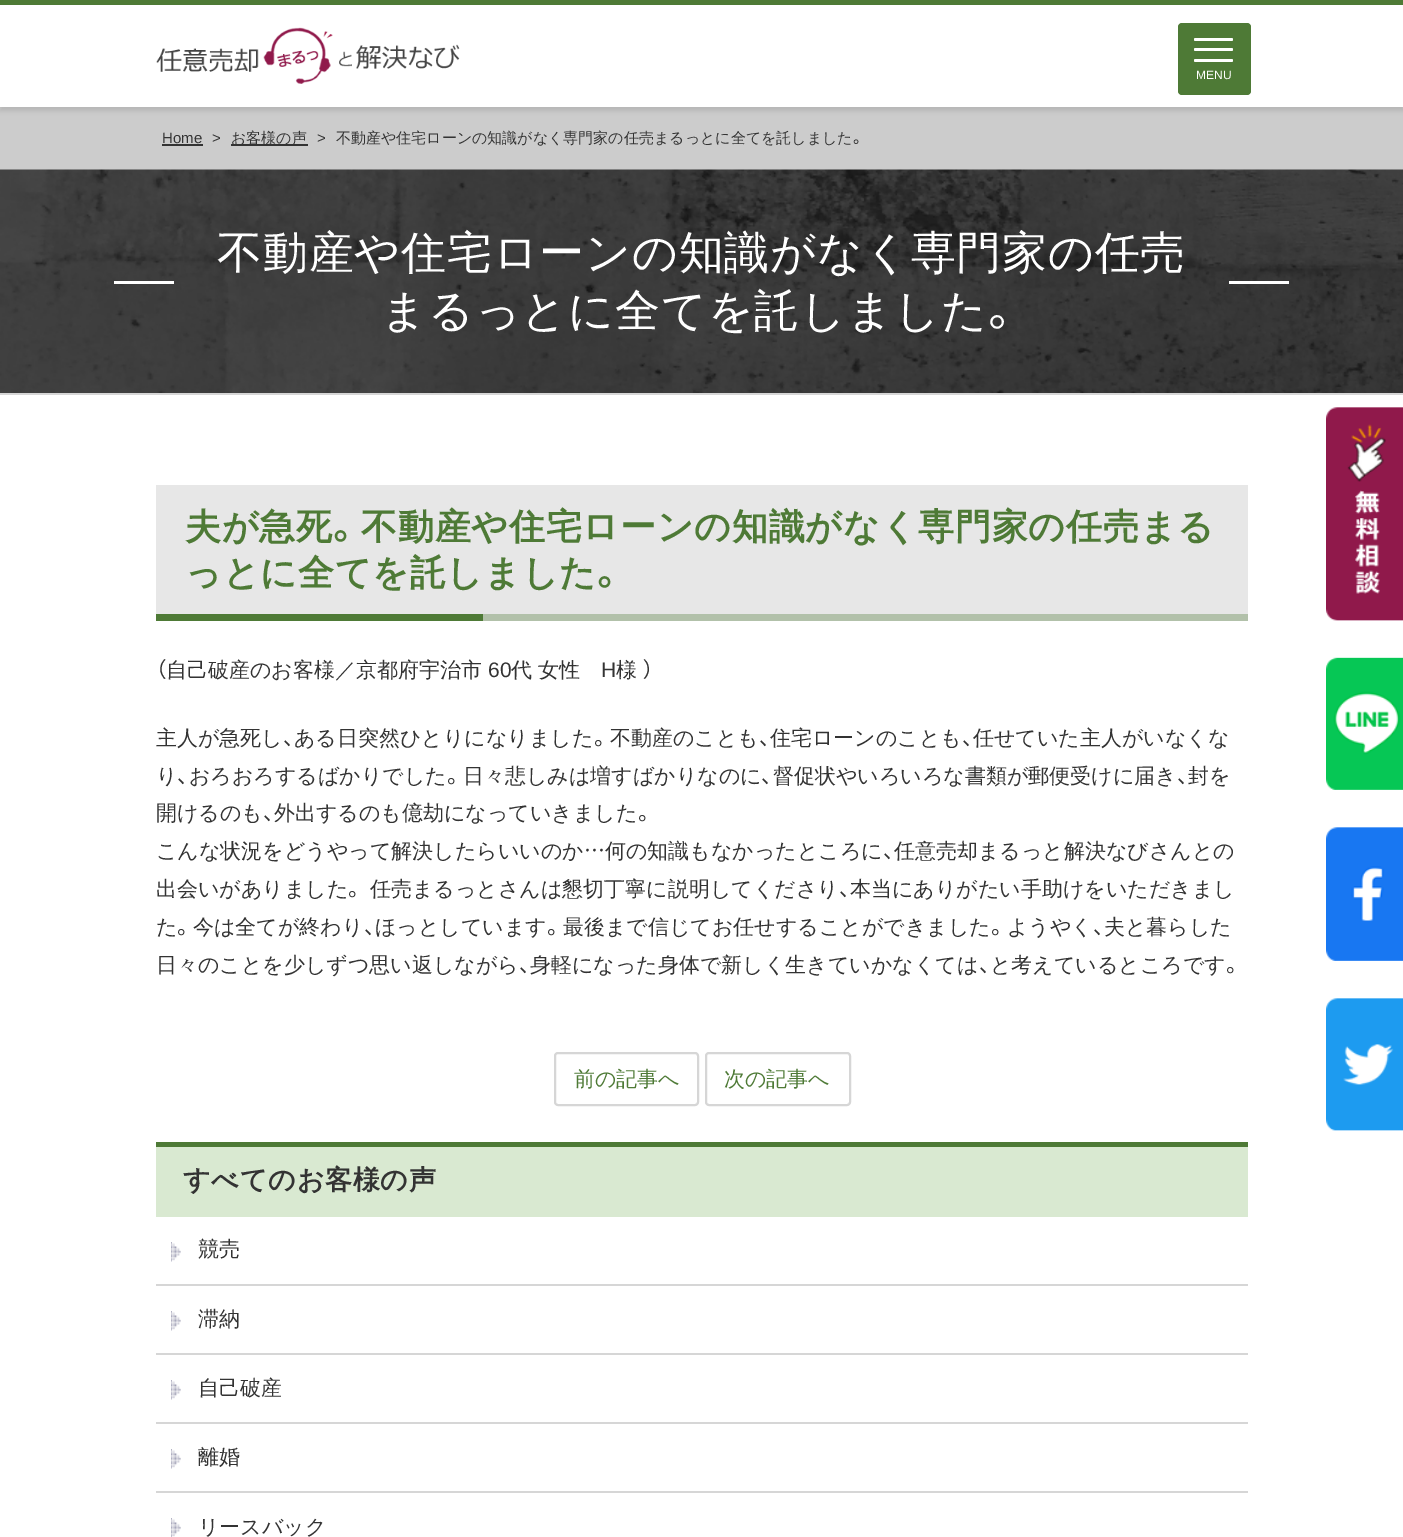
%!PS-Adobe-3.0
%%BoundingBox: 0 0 1403 1537
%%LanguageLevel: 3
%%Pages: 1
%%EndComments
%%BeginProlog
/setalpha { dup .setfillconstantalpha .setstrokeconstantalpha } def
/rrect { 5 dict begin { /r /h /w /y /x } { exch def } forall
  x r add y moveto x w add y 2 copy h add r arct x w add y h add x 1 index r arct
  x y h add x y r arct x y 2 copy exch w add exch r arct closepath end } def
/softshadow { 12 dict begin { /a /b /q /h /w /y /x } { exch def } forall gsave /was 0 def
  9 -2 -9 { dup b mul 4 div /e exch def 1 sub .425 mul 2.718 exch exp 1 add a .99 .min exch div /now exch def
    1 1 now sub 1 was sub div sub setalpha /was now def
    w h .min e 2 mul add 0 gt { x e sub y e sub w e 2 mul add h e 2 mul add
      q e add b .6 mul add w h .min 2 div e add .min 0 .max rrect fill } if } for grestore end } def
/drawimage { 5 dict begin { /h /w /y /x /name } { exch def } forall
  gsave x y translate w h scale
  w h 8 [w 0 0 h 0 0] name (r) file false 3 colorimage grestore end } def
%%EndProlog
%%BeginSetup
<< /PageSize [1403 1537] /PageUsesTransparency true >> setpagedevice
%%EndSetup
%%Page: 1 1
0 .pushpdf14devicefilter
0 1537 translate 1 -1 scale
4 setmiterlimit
1 setgray
0 0 1403 1537 rectfill
0.306 0.478 0.212 setrgbcolor
0 0 1403 5 rectfill
0.8 setgray
0 107 1403 63 rectfill
gsave
newpath 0 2 moveto 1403 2 lineto 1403 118 lineto 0 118 lineto closepath 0 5 moveto 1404 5 lineto 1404 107 lineto 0 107 lineto closepath eoclip newpath
0 setgray
0 9 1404 102 0 2 0.1 softshadow
grestore
(images/1.raw) 156 27 304 57 drawimage
0.306 0.478 0.212 setrgbcolor
1178 23 73 72 4 rrect fill
1 setgray
1194 38 39 3 1.5 rrect fill
1194 48 39 3 1.5 rrect fill
1194 59 39 3 1.5 rrect fill
0.2 setgray
162 144 41 2 rectfill
231 144 77 2 rectfill
(images/2.raw) 0 169 1403 224 drawimage
0.839 setgray
0 393 1403 2 rectfill
1 setgray
114 281 60 3 rectfill
1229 281 60 3 rectfill
0.906 setgray
156 485 1092 129 rectfill
0.698 0.757 0.667 setrgbcolor
483 614 765 7 rectfill
0.306 0.478 0.212 setrgbcolor
156 614 327 7 rectfill
0.839 setgray
2 setlinewidth
555 1053 143 52 3 rrect stroke
706 1053 144 52 3 rrect stroke
0.851 0.914 0.82 setrgbcolor
156 1147 1092 70 rectfill
0.306 0.478 0.212 setrgbcolor
156 1142 1092 5 rectfill
0.839 setgray
156 1284 1092 2 rectfill
(images/3.raw) 171 1242 10 20 drawimage
156 1353 1092 2 rectfill
(images/3.raw) 171 1311 10 20 drawimage
156 1422 1092 2 rectfill
(images/3.raw) 171 1380 10 20 drawimage
156 1491 1092 2 rectfill
(images/3.raw) 171 1449 10 20 drawimage
(images/4.raw) 171 1518 10 19 drawimage
(images/5.raw) 1326 407 77 214 drawimage
(images/6.raw) 1326 657 77 133 drawimage
(images/7.raw) 1326 827 77 134 drawimage
(images/8.raw) 1326 998 77 133 drawimage
/LiberationSans-Regular [12 0 0 -12 0 0] selectfont
1 setgray
1196 79 moveto (MENU) show
/LiberationSans-Regular [15 0 0 -15 0 0] selectfont
0.2 setgray
162 143 moveto (Home) show
212 143 moveto (>) show
/WenQuanYiZenHei-Medium [15 0 0 -15 0 0] selectfont
231 143 moveto (お客様の声) show
/LiberationSans-Regular [15 0 0 -15 0 0] selectfont
317 143 moveto (>) show
/WenQuanYiZenHei-Medium [15 0 0 -15 0 0] selectfont
336 143 moveto (不動産や住宅ローンの知識がなく専門家の任売まるっとに全てを託しました) show
/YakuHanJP-Medium [15 0 0 -15 0 0] selectfont
853 143 moveto (。) show
/WenQuanYiZenHei-Medium [45 0 0 -45 0 0] selectfont
1 setgray
217 268 moveto 0.75 0 (不動産や住宅ローンの知識がなく専門家の任売) ashow
381 326 moveto 0.75 0 (まるっとに全てを託しました) ashow
/YakuHanJP-Regular [45 0 0 -45 0 0] selectfont
988 326 moveto 0.75 0 (。) ashow
/WenQuanYiZenHei-Bold [36 0 0 -36 0 0] selectfont
0.306 0.478 0.212 setrgbcolor
185 539 moveto 0.75 0 (夫が急死) ashow
/YakuHanJP-Bold [36 0 0 -36 0 0] selectfont
333 539 moveto 0.75 0 (。) ashow
/WenQuanYiZenHei-Bold [36 0 0 -36 0 0] selectfont
361 539 moveto 0.75 0 (不動産や住宅ローンの知識がなく専門家の任売まる) ashow
185 585 moveto 0.75 0 (っとに全てを託しました) ashow
/YakuHanJP-Bold [36 0 0 -36 0 0] selectfont
597 585 moveto 0.75 0 (。) ashow
/YakuHanJP-Regular [21 0 0 -21 0 0] selectfont
0.2 setgray
156 677 moveto (（) show
/WenQuanYiZenHei-Medium [21 0 0 -21 0 0] selectfont
166 677 moveto (自己破産のお客様／京都府宇治市) show
/LiberationSans-Regular [21 0 0 -21 0 0] selectfont
488 677 moveto (60) show
/WenQuanYiZenHei-Medium [21 0 0 -21 0 0] selectfont
511 677 moveto (代 女性) show
/LiberationSans-Regular [21 0 0 -21 0 0] selectfont
601 677 moveto (H) show
/WenQuanYiZenHei-Medium [21 0 0 -21 0 0] selectfont
616 677 moveto (様) show
/YakuHanJP-Regular [21 0 0 -21 0 0] selectfont
643 677 moveto (）) show
/WenQuanYiZenHei-Medium [21 0 0 -21 0 0] selectfont
156 745 moveto (主人が急死し) show
/YakuHanJP-Regular [21 0 0 -21 0 0] selectfont
283 745 moveto (、) show
/WenQuanYiZenHei-Medium [21 0 0 -21 0 0] selectfont
294 745 moveto (ある日突然ひとりになりました) show
/YakuHanJP-Regular [21 0 0 -21 0 0] selectfont
594 745 moveto (。) show
/WenQuanYiZenHei-Medium [21 0 0 -21 0 0] selectfont
610 745 moveto (不動産のことも) show
/YakuHanJP-Regular [21 0 0 -21 0 0] selectfont
759 745 moveto (、) show
/WenQuanYiZenHei-Medium [21 0 0 -21 0 0] selectfont
770 745 moveto (住宅ローンのことも) show
/YakuHanJP-Regular [21 0 0 -21 0 0] selectfont
962 745 moveto (、) show
/WenQuanYiZenHei-Medium [21 0 0 -21 0 0] selectfont
973 745 moveto (任せていた主人がいなくな) show
156 783 moveto (り) show
/YakuHanJP-Regular [21 0 0 -21 0 0] selectfont
177 783 moveto (、) show
/WenQuanYiZenHei-Medium [21 0 0 -21 0 0] selectfont
189 783 moveto (おろおろするばかりでした) show
/YakuHanJP-Regular [21 0 0 -21 0 0] selectfont
447 783 moveto (。) show
/WenQuanYiZenHei-Medium [21 0 0 -21 0 0] selectfont
463 783 moveto (日々悲しみは増すばかりなのに) show
/YakuHanJP-Regular [21 0 0 -21 0 0] selectfont
761 783 moveto (、) show
/WenQuanYiZenHei-Medium [21 0 0 -21 0 0] selectfont
773 783 moveto (督促状やいろいろな書類が郵便受けに届き) show
/YakuHanJP-Regular [21 0 0 -21 0 0] selectfont
1177 783 moveto (、) show
/WenQuanYiZenHei-Medium [21 0 0 -21 0 0] selectfont
1188 783 moveto (封を) show
156 820 moveto (開けるのも) show
/YakuHanJP-Regular [21 0 0 -21 0 0] selectfont
263 820 moveto (、) show
/WenQuanYiZenHei-Medium [21 0 0 -21 0 0] selectfont
274 820 moveto (外出するのも億劫になっていきました) show
/YakuHanJP-Regular [21 0 0 -21 0 0] selectfont
638 820 moveto (。) show
/WenQuanYiZenHei-Medium [21 0 0 -21 0 0] selectfont
156 858 moveto (こんな状況をどうやって解決したらいいのか) show
/YakuHanJP-Regular [21 0 0 -21 0 0] selectfont
584 858 moveto (…) show
/WenQuanYiZenHei-Medium [21 0 0 -21 0 0] selectfont
605 858 moveto (何の知識もなかったところに) show
894 858 moveto (任意売却まるっと解決なびさんとの) show
/YakuHanJP-Regular [21 0 0 -21 0 0] selectfont
883 858 moveto (、) show
/WenQuanYiZenHei-Medium [21 0 0 -21 0 0] selectfont
156 896 moveto (出会いがありました) show
/YakuHanJP-Regular [21 0 0 -21 0 0] selectfont
348 896 moveto (。) show
/WenQuanYiZenHei-Medium [21 0 0 -21 0 0] selectfont
370 896 moveto (任売まるっとさんは懇切丁寧に説明してくださり) show
/YakuHanJP-Regular [21 0 0 -21 0 0] selectfont
839 896 moveto (、) show
/WenQuanYiZenHei-Medium [21 0 0 -21 0 0] selectfont
850 896 moveto (本当にありがたい手助けをいただきまし) show
156 934 moveto (た) show
/YakuHanJP-Regular [21 0 0 -21 0 0] selectfont
177 934 moveto (。) show
/WenQuanYiZenHei-Medium [21 0 0 -21 0 0] selectfont
193 934 moveto (今は全てが終わり) show
/YakuHanJP-Regular [21 0 0 -21 0 0] selectfont
364 934 moveto (、) show
/WenQuanYiZenHei-Medium [21 0 0 -21 0 0] selectfont
375 934 moveto (ほっとしています) show
/YakuHanJP-Regular [21 0 0 -21 0 0] selectfont
547 934 moveto (。) show
/WenQuanYiZenHei-Medium [21 0 0 -21 0 0] selectfont
563 934 moveto (最後まで信じてお任せすることができました) show
/YakuHanJP-Regular [21 0 0 -21 0 0] selectfont
991 934 moveto (。) show
/WenQuanYiZenHei-Medium [21 0 0 -21 0 0] selectfont
1007 934 moveto (ようやく) show
/YakuHanJP-Regular [21 0 0 -21 0 0] selectfont
1093 934 moveto (、) show
/WenQuanYiZenHei-Medium [21 0 0 -21 0 0] selectfont
1104 934 moveto (夫と暮らした) show
156 972 moveto (日々のことを少しずつ思い返しながら) show
/YakuHanJP-Regular [21 0 0 -21 0 0] selectfont
519 972 moveto (、) show
/WenQuanYiZenHei-Medium [21 0 0 -21 0 0] selectfont
530 972 moveto (身軽になった身体で新しく生きていかなくては) show
/YakuHanJP-Regular [21 0 0 -21 0 0] selectfont
979 972 moveto (、) show
/WenQuanYiZenHei-Medium [21 0 0 -21 0 0] selectfont
990 972 moveto (と考えているところです) show
/YakuHanJP-Regular [21 0 0 -21 0 0] selectfont
1226 972 moveto (。) show
/WenQuanYiZenHei-Medium [21 0 0 -21 0 0] selectfont
0.306 0.478 0.212 setrgbcolor
574 1086 moveto (前の記事へ) show
724 1086 moveto (次の記事へ) show
/WenQuanYiZenHei-Bold [27 0 0 -27 0 0] selectfont
0.2 setgray
183 1189 moveto 0.75 0 (すべてのお客様の声) ashow
/WenQuanYiZenHei-Medium [21 0 0 -21 0 0] selectfont
198 1256 moveto (競売) show
198 1326 moveto (滞納) show
198 1395 moveto (自己破産) show
198 1464 moveto (離婚) show
198 1534 moveto (リースバック) show
.poppdf14devicefilter showpage
%%EOF
